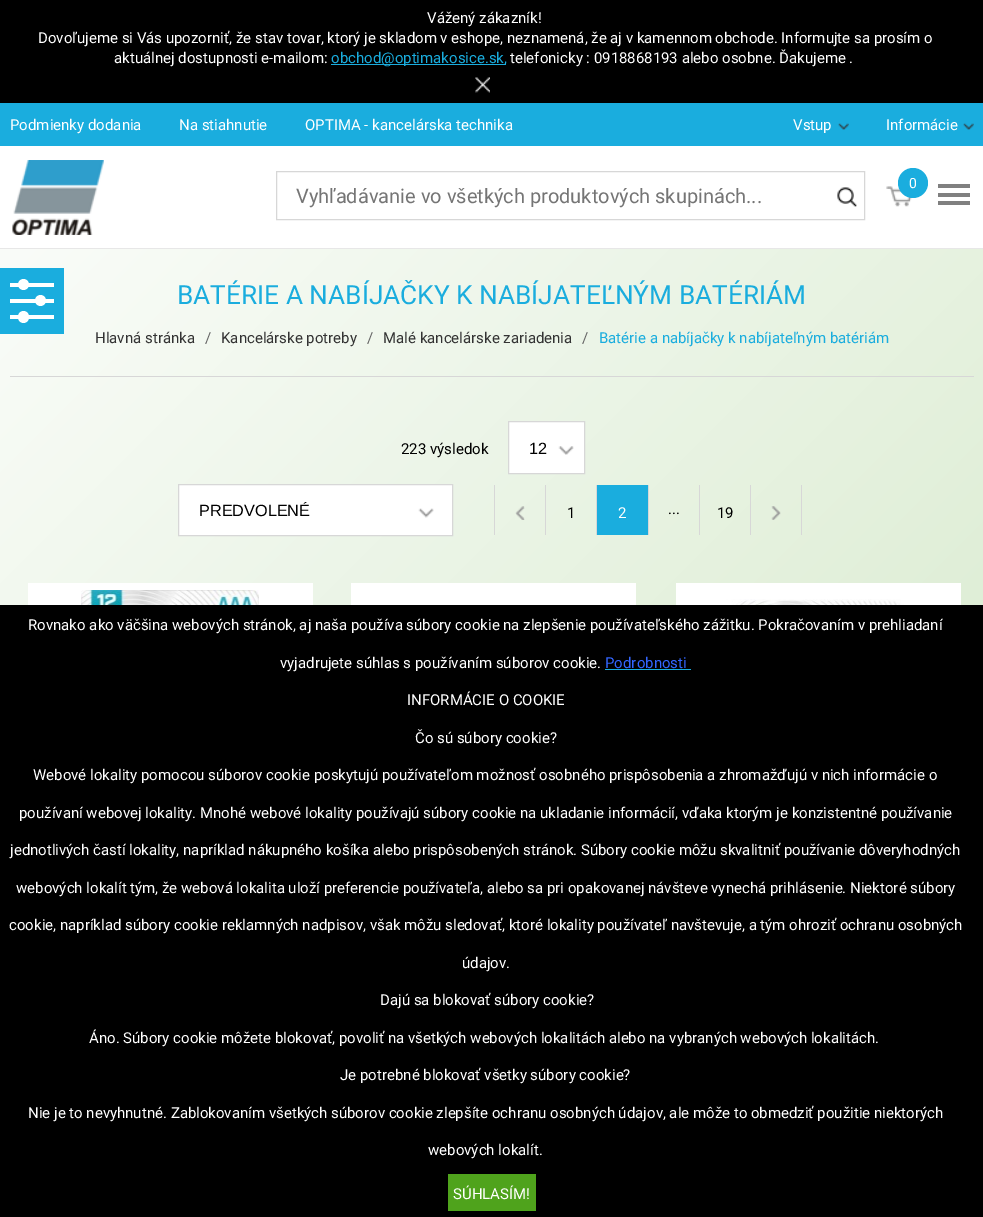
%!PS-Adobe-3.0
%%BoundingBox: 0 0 983 1217
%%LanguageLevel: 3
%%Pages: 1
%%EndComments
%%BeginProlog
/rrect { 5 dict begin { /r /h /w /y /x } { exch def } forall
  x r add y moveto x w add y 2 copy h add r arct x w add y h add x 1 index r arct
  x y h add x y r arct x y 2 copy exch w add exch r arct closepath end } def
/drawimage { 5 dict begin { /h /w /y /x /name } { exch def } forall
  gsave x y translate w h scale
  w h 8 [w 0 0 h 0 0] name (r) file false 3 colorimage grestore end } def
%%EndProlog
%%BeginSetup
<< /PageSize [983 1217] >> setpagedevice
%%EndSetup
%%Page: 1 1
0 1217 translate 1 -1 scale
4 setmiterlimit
1 setgray
0 0 983 1217 rectfill
gsave newpath 0 249 moveto 983 249 lineto 983 605 lineto 0 605 lineto closepath clip newpath
<< /ShadingType 2 /ColorSpace /DeviceRGB /Coords [-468 468 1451 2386] /Extend [true true] /Function << /FunctionType 2 /Domain [0 1] /C0 [1 1 1] /C1 [0.694 0.839 0.62] /N 1 >> >> shfill grestore
0 setgray
0 0 983 103 rectfill
0.102 0.678 0.871 setrgbcolor
331 64 175 1 rectfill
(images/1.raw) 475 77 15 16 drawimage
0 103 983 43 rectfill
(images/2.raw) 838 123 11 7 drawimage
(images/2.raw) 963 123 11 7 drawimage
0.906 setgray
0 248 983 1 rectfill
(images/3.raw) 12 160 92 75 drawimage
0.843 setgray
276.5 171.5 588 48 rectstroke
(images/4.raw) 837 187 20 20 drawimage
(images/5.raw) 886 186 26 21 drawimage
0.102 0.678 0.871 setrgbcolor
newpath 913 183 15 0 360 arc closepath fill
0.502 setgray
938 184 32 4 rectfill
938 193 32 4 rectfill
938 201 32 4 rectfill
0.102 0.678 0.871 setrgbcolor
0 268 64 66 rectfill
1 setgray
10 315 44 4 rectfill
10 299 44 4 rectfill
10 283 44 4 rectfill
18 311 11 12 5.5 rrect fill
newpath 40.5 300.5 5.5 0 360 arc closepath fill
newpath 23.5 284.5 5.5 0 360 arc closepath fill
0.843 setgray
10 376 964 1 rectfill
1 setgray
newpath 508.5 421.5 moveto 584.5 421.5 lineto 584.5 473.5 lineto 508.5 473.5 lineto closepath gsave fill grestore
0.843 setgray
stroke
(images/6.raw) 558 446 16 9 drawimage
1 setgray
newpath 178.5 484.5 moveto 452.5 484.5 lineto 452.5 535.5 lineto 178.5 535.5 lineto closepath gsave fill grestore
0.843 setgray
stroke
(images/7.raw) 418 508 16 10 drawimage
494 485 1 50 rectfill
(images/8.raw) 515 506 10 14 drawimage
545 485 1 50 rectfill
0.102 0.678 0.871 setrgbcolor
597 485 51 50 rectfill
0.843 setgray
596 485 1 50 rectfill
648 485 1 50 rectfill
699 485 1 50 rectfill
801 485 1 50 rectfill
750 485 1 50 rectfill
(images/9.raw) 771 506 10 14 drawimage
1 setgray
28 583 285 22 rectfill
(images/10.raw) 81 590 178 15 drawimage
351 583 285 22 rectfill
676 583 285 22 rectfill
(images/11.raw) 726 599 178 6 drawimage
0 setgray
0 605 983 612 rectfill
0.102 0.678 0.871 setrgbcolor
605 669 86 1 rectfill
0.31 0.639 0.11 setrgbcolor
448 1174 88 37 rectfill
/Roboto-Regular [15 0 0 -15 0 0] selectfont
1 setgray
427 23 moveto (Vážený zákazník!) show
38 43 moveto (Dovoľujeme si Vás upozorniť, že stav tovar, ktorý je skladom v eshope, neznamená, že aj v kamennom obchode. Informujte sa prosím o) show
114 63 moveto (aktuálnej dostupnosti e-mailom:) show
0.102 0.678 0.871 setrgbcolor
331 63 moveto (obchod@optimakosice.sk,) show
1 setgray
510 63 moveto (telefonicky : 0918868193 alebo osobne. Ďakujeme .) show
10 130 moveto (Podmienky dodania) show
179 130 moveto (Na stiahnutie) show
305 130 moveto (OPTIMA - kancelárska technika) show
793 130 moveto (Vstup) show
886 130 moveto (Informácie) show
/Roboto-Regular [20 0 0 -20 0 0] selectfont
0.459 setgray
296 203 moveto (Vyhľadávanie vo všetkých produktových skupinách...) show
/Roboto-Regular [14 0 0 -14 0 0] selectfont
1 setgray
909 188 moveto (0) show
/Roboto-Regular [26.25 0 0 -26.25 0 0] selectfont
0.102 0.678 0.871 setrgbcolor
177 304 moveto (BATÉRIE A NABÍJAČKY K NABÍJATEĽNÝM BATÉRIÁM) show
/Roboto-Regular [15 0 0 -15 0 0] selectfont
0.2 setgray
95 343 moveto (Hlavná stránka) show
0.4 setgray
205 343 moveto (/) show
0.2 setgray
221 343 moveto (Kancelárske potreby) show
0.4 setgray
367 343 moveto (/) show
0.2 setgray
383 343 moveto (Malé kancelárske zariadenia) show
0.4 setgray
582 343 moveto (/) show
0.102 0.678 0.871 setrgbcolor
599 343 moveto (Batérie a nabíjačky k nabíjateľným batériám) show
0 setgray
401 454 moveto (223 výsledok) show
/LiberationSans-Regular [16.25 0 0 -16.25 0 0] selectfont
529 454 moveto (12) show
199 516 moveto (PREDVOLENÉ) show
/Roboto-Regular [15 0 0 -15 0 0] selectfont
567 518 moveto (1) show
1 setgray
618 518 moveto (2) show
0 setgray
668 514 moveto (...) show
717 518 moveto (19) show
1 setgray
28 630 moveto (Rovnako ako väčšina webových stránok, aj naša používa súbory cookie na zlepšenie používateľského zážitku. Pokračovaním v prehliadaní) show
280 668 moveto (vyjadrujete súhlas s používaním súborov cookie.) show
0.2 0.4 1 setrgbcolor
605 668 moveto (Podrobnosti) show
1 setgray
407 705 moveto (INFORMÁCIE O COOKIE) show
415 743 moveto (Čo sú súbory cookie?) show
33 780 moveto (Webové lokality pomocou súborov cookie poskytujú používateľom možnosť osobného prispôsobenia a zhromažďujú v nich informácie o) show
19 818 moveto (používaní webovej lokality. Mnohé webové lokality používajú súbory cookie na ukladanie informácií, vďaka ktorým je konzistentné používanie) show
10 855 moveto (jednotlivých častí lokality, napríklad nákupného košíka alebo prispôsobených stránok. Súbory cookie môžu skvalitniť používanie dôveryhodných) show
16 893 moveto (webových lokalít tým, že webová lokalita uloží preferencie používateľa, alebo sa pri opakovanej návšteve vynechá prihlásenie. Niektoré súbory) show
9 930 moveto (cookie, napríklad súbory cookie reklamných nadpisov, však môžu sledovať, ktoré lokality používateľ navštevuje, a tým ohroziť ochranu osobných) show
462 968 moveto (údajov.) show
380 1005 moveto (Dajú sa blokovať súbory cookie?) show
89 1043 moveto (Áno. Súbory cookie môžete blokovať, povoliť na všetkých webových lokalitách alebo na vybraných webových lokalitách.) show
340 1080 moveto (Je potrebné blokovať všetky súbory cookie?) show
28 1118 moveto (Nie je to nevyhnutné. Zablokovaním všetkých súborov cookie zlepšíte ochranu osobných údajov, ale môže to obmedziť použitie niektorých) show
428 1155 moveto (webových lokalít.) show
453 1199 moveto (SÚHLASÍM!) show
showpage
%%EOF
